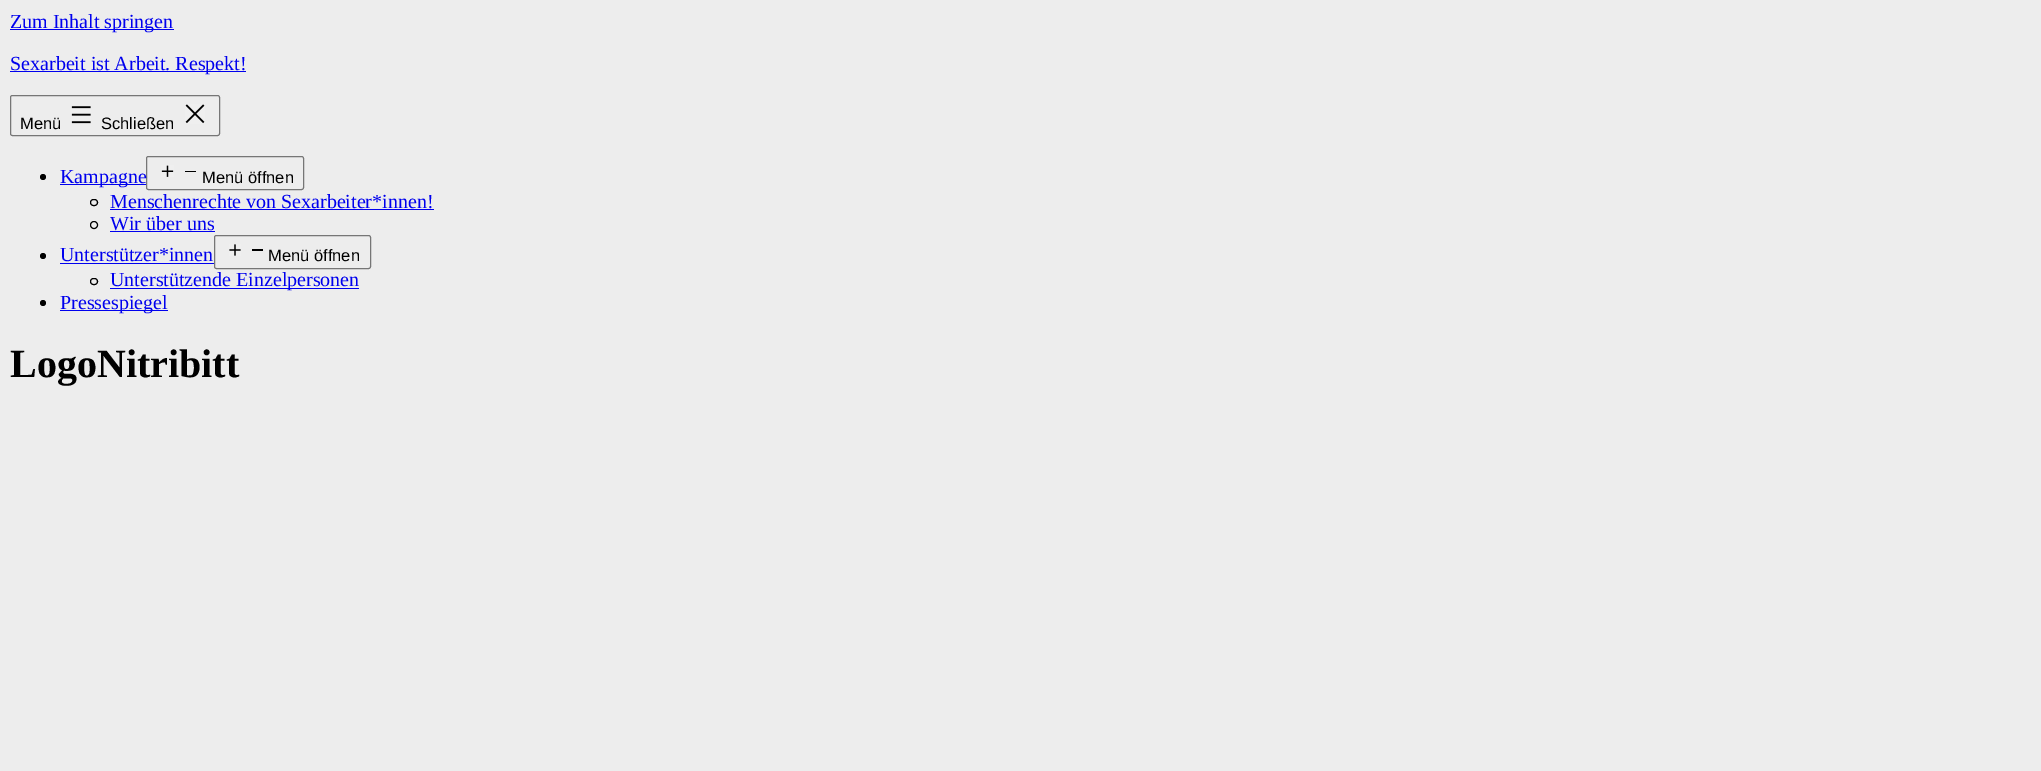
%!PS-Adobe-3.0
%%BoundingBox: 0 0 2041 771
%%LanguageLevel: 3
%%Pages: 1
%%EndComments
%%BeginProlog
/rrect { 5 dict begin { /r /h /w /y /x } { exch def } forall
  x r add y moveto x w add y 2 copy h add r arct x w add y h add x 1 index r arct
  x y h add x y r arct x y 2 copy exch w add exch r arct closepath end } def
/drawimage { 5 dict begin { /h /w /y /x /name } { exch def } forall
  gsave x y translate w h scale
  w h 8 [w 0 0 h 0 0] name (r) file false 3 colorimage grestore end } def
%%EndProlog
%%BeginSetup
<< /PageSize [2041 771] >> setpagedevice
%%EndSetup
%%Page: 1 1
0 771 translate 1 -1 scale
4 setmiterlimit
0.929 setgray
0 0 2041 771 rectfill
0 0 0.933 setrgbcolor
10 29 164 1 rectfill
10 71 236 1 rectfill
0.463 setgray
10.5 95.5 209 40 2 rrect stroke
(images/1.raw) 71 106 20 18 drawimage
(images/2.raw) 185 104 20 20 drawimage
0 setgray
newpath 43 177 3 0 360 arc closepath fill
0 0 0.933 setrgbcolor
60 184 86 1 rectfill
0.463 setgray
146.5 156.5 157 33 2 rrect stroke
(images/3.raw) 161 165 13 12 drawimage
0 setgray
185 171 11 1 rectfill
90.5 199.5 7 6 3 rrect stroke
0 0 0.933 setrgbcolor
110 209 324 1 rectfill
0 setgray
newpath 94 225 3.5 0 360 arc closepath stroke
0 0 0.933 setrgbcolor
110 231 105 1 rectfill
0 setgray
newpath 43 256 3 0 360 arc closepath fill
0 0 0.933 setrgbcolor
60 263 154 1 rectfill
0.463 setgray
214.5 235.5 156 33 2 rrect stroke
(images/4.raw) 229 244 12 12 drawimage
0 setgray
252 249 11 2 rectfill
90.5 278.5 7 6 3 rrect stroke
0 0 0.933 setrgbcolor
110 288 249 1 rectfill
0 setgray
newpath 43 303 3 0 360 arc closepath fill
0 0 0.933 setrgbcolor
60 310 108 1 rectfill
/LiberationSerif-Regular [20 0 0 -20 0 0] selectfont
10 28 moveto (Zum Inhalt springen) show
10 70 moveto (Sexarbeit ist Arbeit. Respekt!) show
/LiberationSans-Regular [16.5 0 0 -16.5 0 0] selectfont
0 setgray
20 129 moveto (Menü) show
101 129 moveto (Schließen) show
/LiberationSerif-Regular [20 0 0 -20 0 0] selectfont
0 0 0.933 setrgbcolor
60 183 moveto (Kampagne) show
/LiberationSans-Regular [16.5 0 0 -16.5 0 0] selectfont
0 setgray
202 183 moveto (Menü öffnen) show
/LiberationSerif-Regular [20 0 0 -20 0 0] selectfont
0 0 0.933 setrgbcolor
110 208 moveto (Menschenrechte von Sexarbeiter*innen!) show
110 230 moveto (Wir über uns) show
60 261 moveto (Unterstützer*innen) show
/LiberationSans-Regular [16.5 0 0 -16.5 0 0] selectfont
0 setgray
268 261 moveto (Menü öffnen) show
/LiberationSerif-Regular [20 0 0 -20 0 0] selectfont
0 0 0.933 setrgbcolor
110 286 moveto (Unterstützende Einzelpersonen) show
60 309 moveto (Pressespiegel) show
/LiberationSerif-Bold [40 0 0 -40 0 0] selectfont
0 setgray
10 377 moveto (LogoNitribitt) show
showpage
%%EOF
